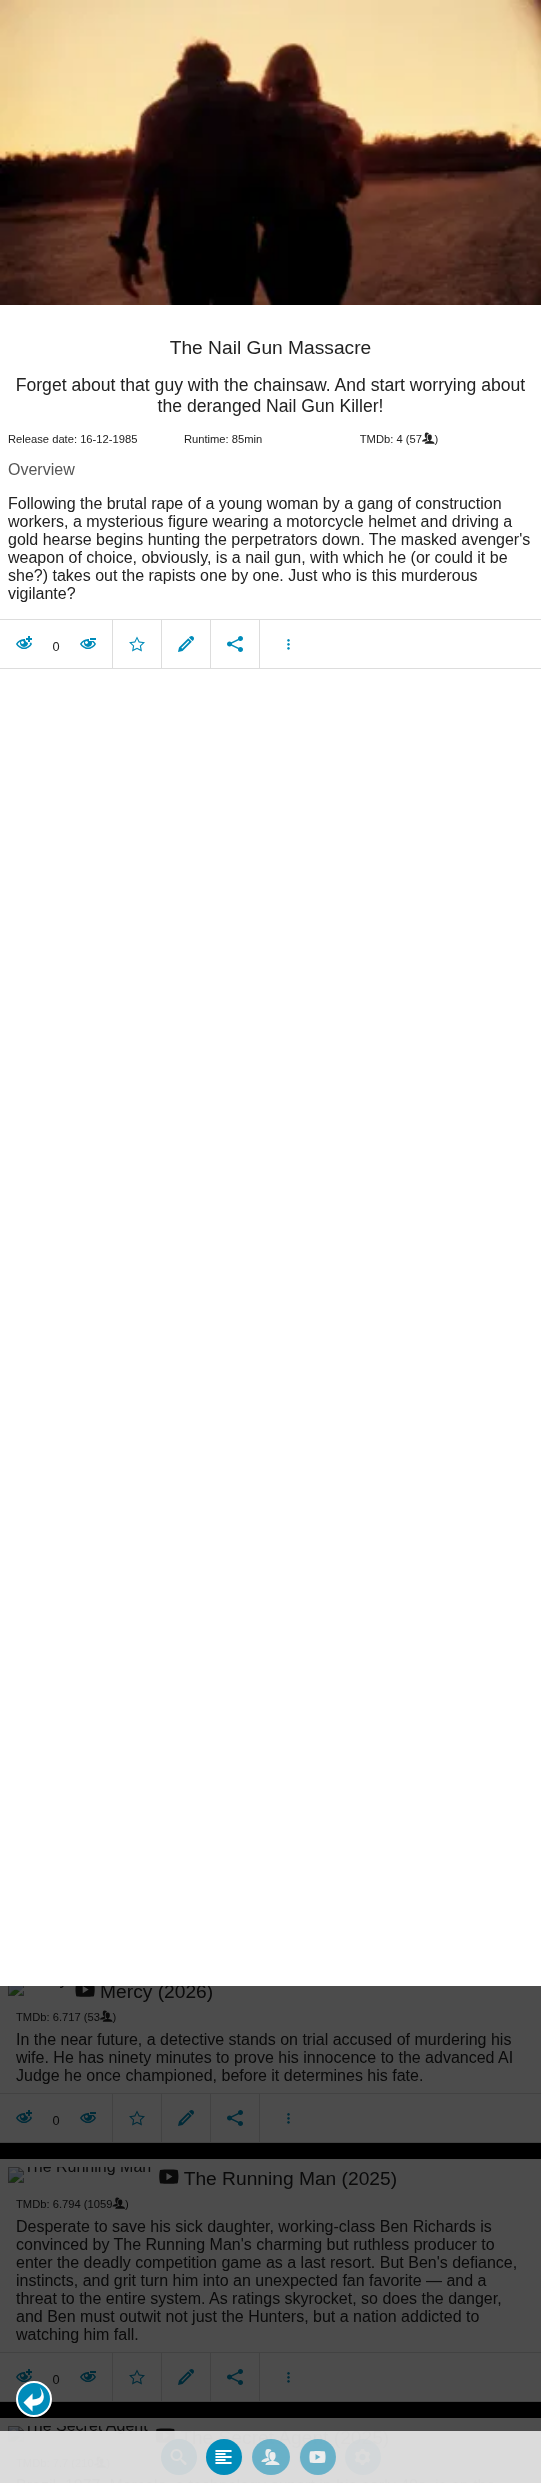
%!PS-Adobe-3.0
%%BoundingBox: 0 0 541 2483
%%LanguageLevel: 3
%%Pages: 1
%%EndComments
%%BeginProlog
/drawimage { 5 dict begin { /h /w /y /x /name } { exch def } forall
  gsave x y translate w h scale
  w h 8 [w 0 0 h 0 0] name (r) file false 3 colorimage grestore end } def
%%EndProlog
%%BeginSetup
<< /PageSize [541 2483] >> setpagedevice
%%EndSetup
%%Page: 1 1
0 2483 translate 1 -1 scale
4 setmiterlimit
1 setgray
0 0 541 2483 rectfill
(images/1.raw) 0 0 541 2483 drawimage
showpage
%%EOF
